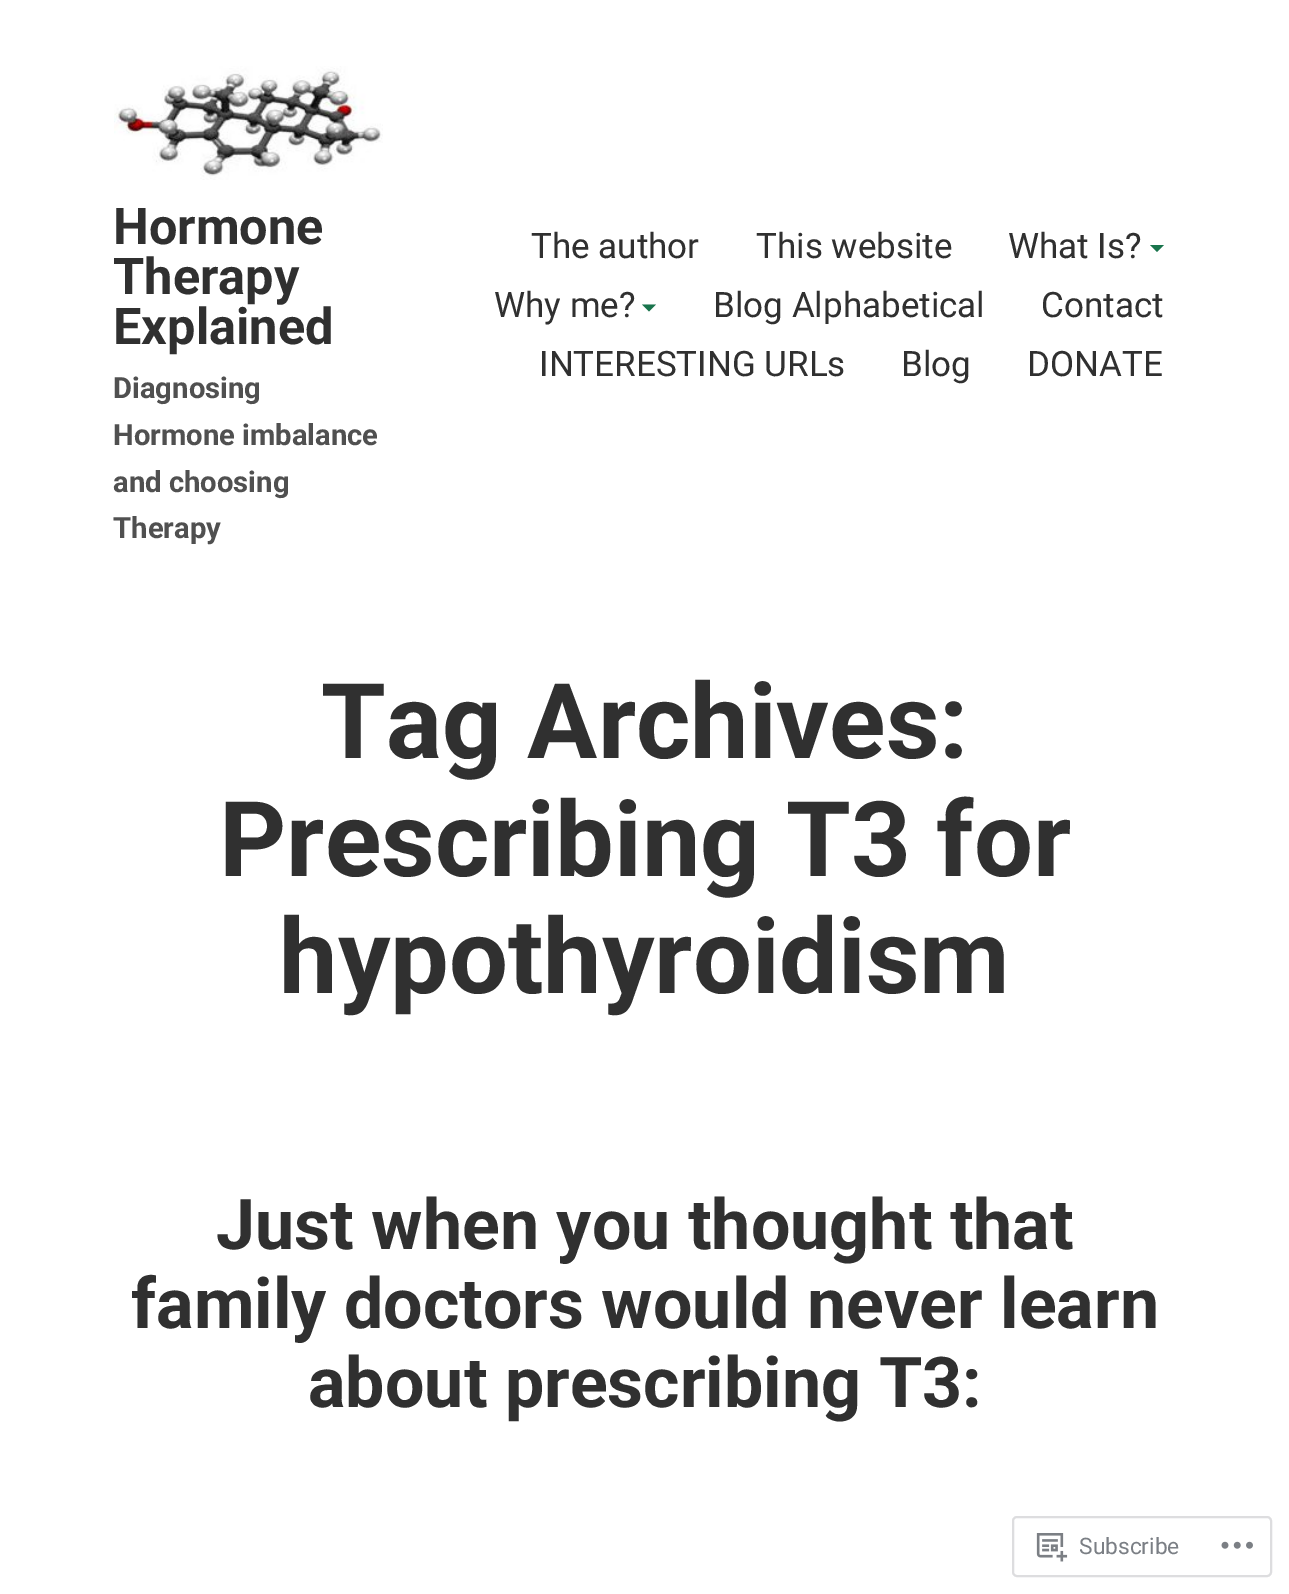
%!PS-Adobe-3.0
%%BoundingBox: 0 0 1289 1594
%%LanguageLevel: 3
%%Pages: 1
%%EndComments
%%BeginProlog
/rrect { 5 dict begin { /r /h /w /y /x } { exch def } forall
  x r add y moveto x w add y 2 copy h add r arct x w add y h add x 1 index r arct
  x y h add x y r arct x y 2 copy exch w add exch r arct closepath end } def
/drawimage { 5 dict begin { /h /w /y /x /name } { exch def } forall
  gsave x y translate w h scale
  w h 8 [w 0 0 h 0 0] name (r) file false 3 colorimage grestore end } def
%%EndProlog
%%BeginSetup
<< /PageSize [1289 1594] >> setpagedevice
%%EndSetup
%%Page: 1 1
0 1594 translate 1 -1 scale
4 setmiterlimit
1 setgray
0 0 1289 1594 rectfill
(images/1.raw) 114 66 269 114 drawimage
0.098 0.455 0.298 setrgbcolor
newpath 1150 245 moveto 1164 245 lineto 1157 252 lineto closepath fill
newpath 642 304.5 moveto 656 304.5 lineto 649 311.5 lineto closepath fill
0.867 0.867 0.875 setrgbcolor
2 setlinewidth
1013 1517 258 59 4 rrect stroke
(images/2.raw) 1036 1533 32 29 drawimage
(images/3.raw) 1221 1541 32 8 drawimage
/Roboto-Bold [50.5 0 0 -50.5 0 0] selectfont
0.188 setgray
113 244 moveto (Hormone) show
113 294 moveto (Therapy) show
113 344 moveto (Explained) show
/Roboto-Bold [29.25 0 0 -29.25 0 0] selectfont
0.314 setgray
113 398 moveto (Diagnosing) show
113 445 moveto (Hormone imbalance) show
113 492 moveto (and choosing) show
113 538 moveto (Therapy) show
/Roboto-Regular [35 0 0 -35 0 0] selectfont
0.188 setgray
531 258 moveto (The author) show
756 258 moveto (This website) show
1008 258 moveto (What Is?) show
494 317 moveto (Why me?) show
713 317 moveto (Blog Alphabetical) show
1041 317 moveto (Contact) show
539 376 moveto (INTERESTING URLs) show
901 376 moveto (Blog) show
1027 376 moveto (DONATE) show
/Roboto-Bold [104.5 0 0 -104.5 0 0] selectfont
321 758 moveto (Tag Archives:) show
219 876 moveto (Prescribing T3 for) show
279 993 moveto (hypothyroidism) show
/Roboto-Bold [70 0 0 -70 0 0] selectfont
216 1249 moveto (Just when you thought that) show
131 1328 moveto (family doctors would never learn) show
308 1407 moveto (about prescribing T3:) show
/Roboto-Regular [22.75 0 0 -22.75 0 0] selectfont
0.482 0.498 0.522 setrgbcolor
1079 1554 moveto (Subscribe) show
showpage
%%EOF
